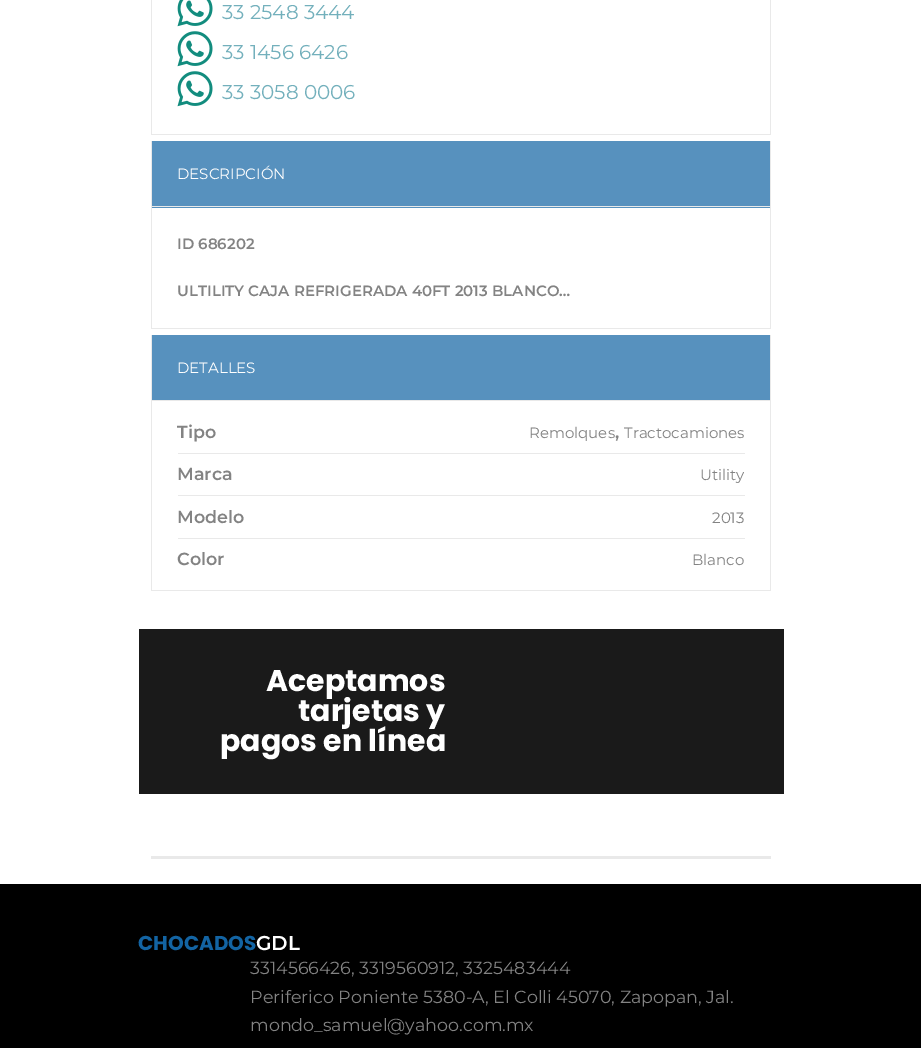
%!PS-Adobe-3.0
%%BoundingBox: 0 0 921 1048
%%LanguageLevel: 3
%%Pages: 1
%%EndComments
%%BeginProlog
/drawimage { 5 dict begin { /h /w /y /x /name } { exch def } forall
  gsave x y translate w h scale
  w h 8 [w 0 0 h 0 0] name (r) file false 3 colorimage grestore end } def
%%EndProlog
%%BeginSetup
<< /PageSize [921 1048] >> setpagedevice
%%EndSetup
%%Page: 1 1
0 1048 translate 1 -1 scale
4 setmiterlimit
1 setgray
0 0 921 1048 rectfill
0.914 setgray
770 0 1 135 rectfill
151 134 620 1 rectfill
151 0 1 135 rectfill
(images/1.raw) 177 0 36 27 drawimage
(images/2.raw) 177 31 36 36 drawimage
(images/2.raw) 177 71 36 36 drawimage
0.341 0.569 0.745 setrgbcolor
152 141 618 67 rectfill
0.914 setgray
770 141 1 188 rectfill
151 206 620 1 rectfill
151 141 1 67 rectfill
151 328 620 1 rectfill
151 208 1 121 rectfill
0.341 0.569 0.745 setrgbcolor
152 335 618 65 rectfill
0.914 setgray
770 335 1 256 rectfill
151 400 620 1 rectfill
151 335 1 66 rectfill
151 590 620 1 rectfill
151 401 1 190 rectfill
178 453 567 1 rectfill
178 495 567 1 rectfill
178 538 567 1 rectfill
0.102 setgray
139 629 645 165 rectfill
0.914 setgray
151 856 620 3 rectfill
0 setgray
0 884 921 164 rectfill
/Montserrat-Regular [20 0 0 -20 0 0] selectfont
0.451 0.69 0.737 setrgbcolor
222 19 moveto (33 2548 3444) show
222 59 moveto (33 1456 6426) show
222 99 moveto (33 3058 0006) show
/Montserrat-Regular [15 0 0 -15 0 0] selectfont
1 setgray
177 179 moveto (DESCRIPCIÓN) show
/Montserrat-SemiBold [15 0 0 -15 0 0] selectfont
0.514 setgray
177 249 moveto (ID 686202) show
177 296 moveto (ULTILITY CAJA REFRIGERADA 40FT 2013 BLANCO…) show
/Montserrat-Regular [15 0 0 -15 0 0] selectfont
1 setgray
177 373 moveto (DETALLES) show
/Montserrat-SemiBold [17.5 0 0 -17.5 0 0] selectfont
0.514 setgray
177 438 moveto (Tipo) show
/Montserrat-Regular [15 0 0 -15 0 0] selectfont
529 438 moveto (Remolques) show
/Montserrat-SemiBold [17.5 0 0 -17.5 0 0] selectfont
615 438 moveto (,) show
/Montserrat-Regular [15 0 0 -15 0 0] selectfont
624 438 moveto (Tractocamiones) show
/Montserrat-SemiBold [17.5 0 0 -17.5 0 0] selectfont
177 480 moveto (Marca) show
/Montserrat-Regular [15 0 0 -15 0 0] selectfont
700 480 moveto (Utility) show
/Montserrat-SemiBold [17.5 0 0 -17.5 0 0] selectfont
177 523 moveto (Modelo) show
/Montserrat-Regular [15 0 0 -15 0 0] selectfont
712 523 moveto (2013) show
/Montserrat-SemiBold [17.5 0 0 -17.5 0 0] selectfont
177 565 moveto (Color) show
/Montserrat-Regular [15 0 0 -15 0 0] selectfont
692 565 moveto (Blanco) show
/Poppins-Bold [30 0 0 -30 0 0] selectfont
1 setgray
266 691 moveto (Aceptamos) show
298 721 moveto (tarjetas y) show
220 751 moveto (pagos en línea) show
/Poppins-Bold [20 0 0 -20 0 0] selectfont
0.075 0.392 0.639 setrgbcolor
138 950 moveto (CHOCADOS) show
/Montserrat-SemiBold [20 0 0 -20 0 0] selectfont
1 setgray
256 950 moveto (GDL) show
/Montserrat-Regular [17.5 0 0 -17.5 0 0] selectfont
0.514 setgray
250 974 moveto (3314566426, 3319560912, 3325483444) show
250 1003 moveto (Periferico Poniente 5380-A, El Colli 45070, Zapopan, Jal.) show
250 1031 moveto (mondo_samuel@yahoo.com.mx) show
showpage
%%EOF
